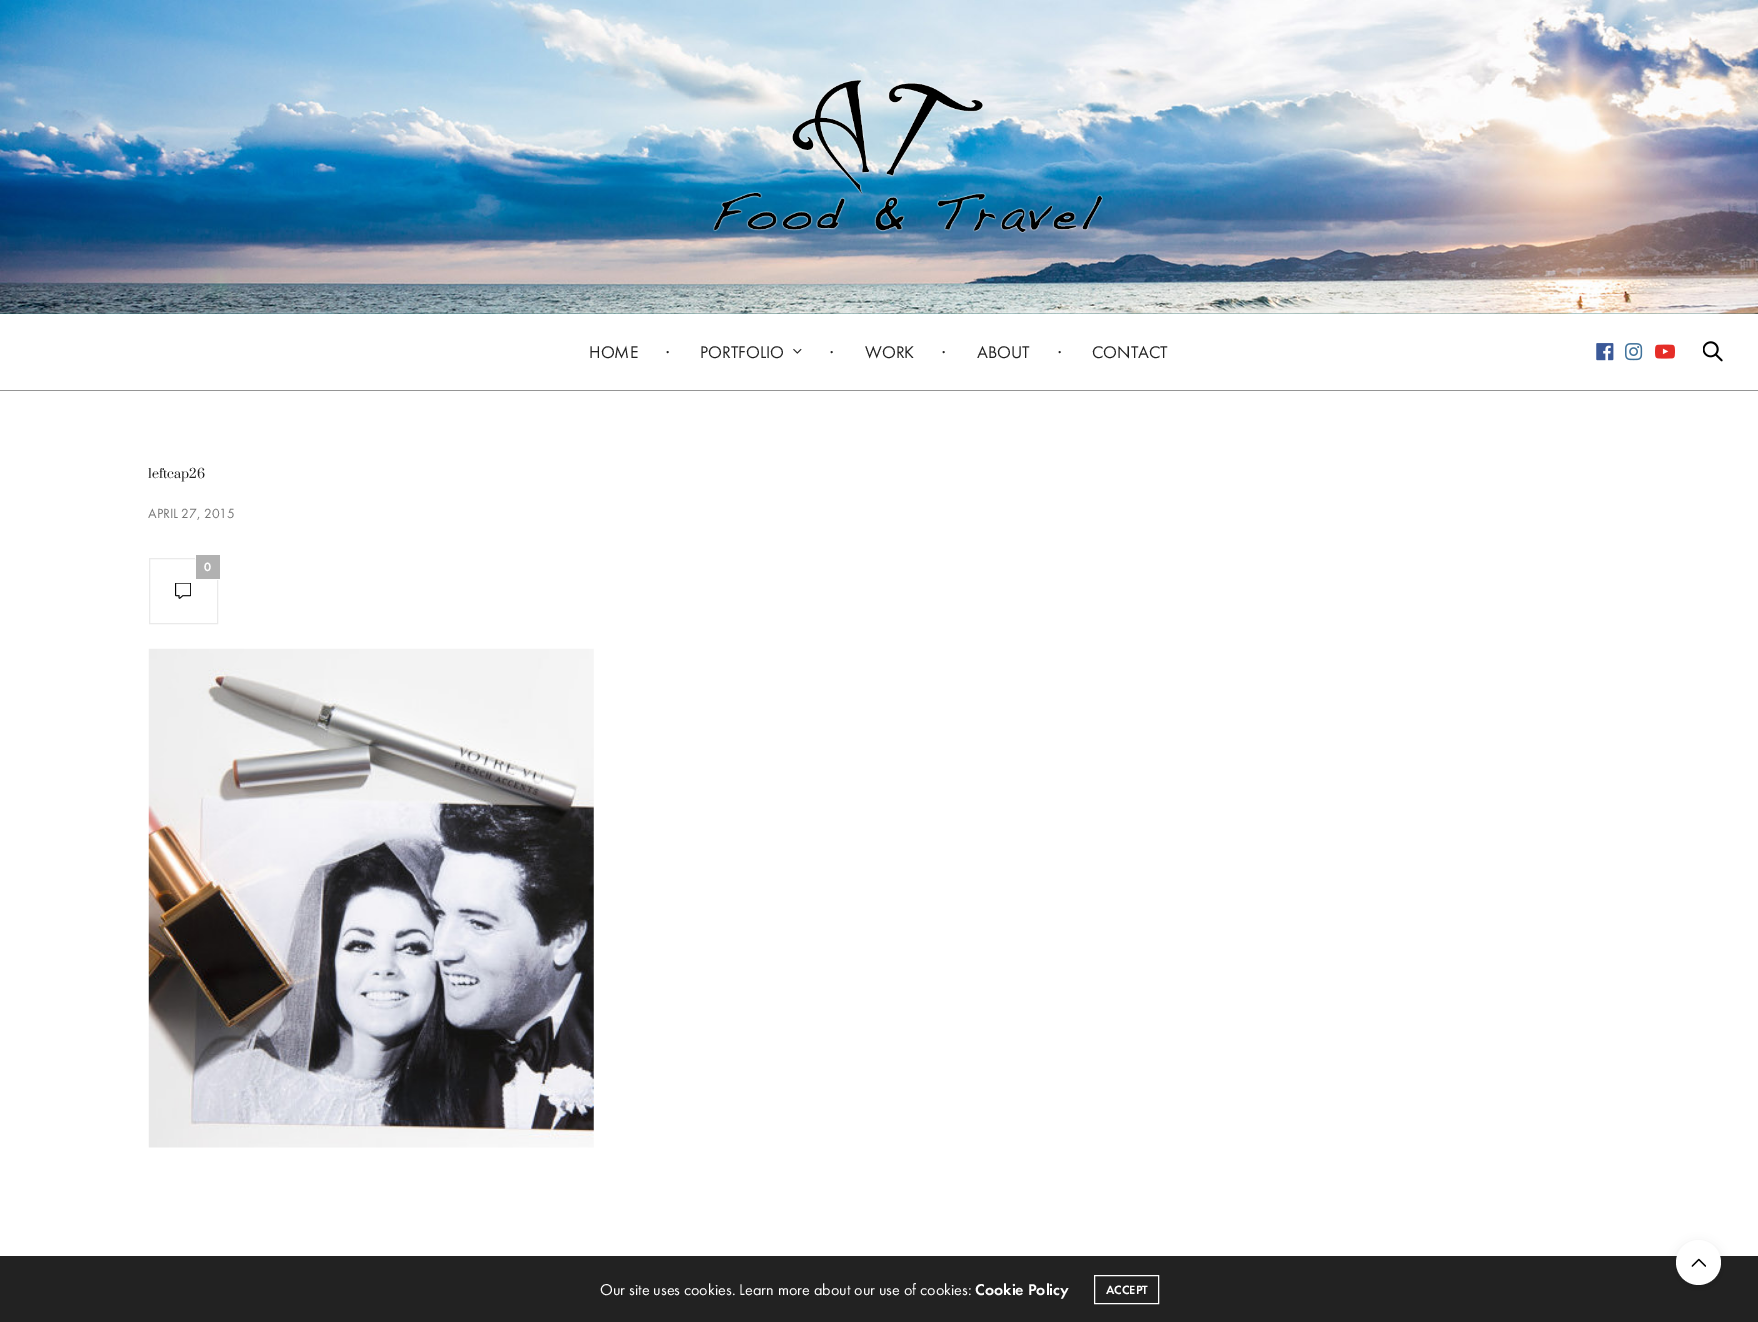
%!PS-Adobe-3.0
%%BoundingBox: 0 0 1758 1322
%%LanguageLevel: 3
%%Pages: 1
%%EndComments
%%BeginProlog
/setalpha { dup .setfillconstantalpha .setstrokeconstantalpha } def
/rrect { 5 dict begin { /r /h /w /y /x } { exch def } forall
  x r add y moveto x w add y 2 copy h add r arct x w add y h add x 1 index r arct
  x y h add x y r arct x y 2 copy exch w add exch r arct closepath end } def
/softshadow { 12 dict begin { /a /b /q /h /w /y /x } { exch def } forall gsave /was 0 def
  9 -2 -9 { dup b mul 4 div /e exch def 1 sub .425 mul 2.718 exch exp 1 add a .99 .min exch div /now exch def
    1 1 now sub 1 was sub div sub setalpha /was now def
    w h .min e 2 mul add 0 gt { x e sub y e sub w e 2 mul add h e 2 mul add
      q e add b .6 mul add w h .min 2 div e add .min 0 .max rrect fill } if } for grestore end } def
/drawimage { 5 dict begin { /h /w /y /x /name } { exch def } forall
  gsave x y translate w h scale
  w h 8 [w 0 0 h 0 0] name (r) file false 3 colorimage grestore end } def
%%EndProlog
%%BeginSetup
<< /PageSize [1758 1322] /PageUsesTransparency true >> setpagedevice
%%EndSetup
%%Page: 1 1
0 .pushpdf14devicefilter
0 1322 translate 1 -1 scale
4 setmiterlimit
1 setgray
0 0 1758 1322 rectfill
(images/1.raw) 0 0 1758 314 drawimage
0.1 setalpha
0 setgray
0 313 1758 1 rectfill
1 setalpha
(images/2.raw) 713 79 390 154 drawimage
0.584 setgray
0 390 1758 1 rectfill
(images/3.raw) 793 348 9 6 drawimage
(images/4.raw) 1596 343 18 18 drawimage
(images/5.raw) 1625 343 18 18 drawimage
(images/6.raw) 1655 344 20 15 drawimage
(images/7.raw) 1703 341 20 21 drawimage
0.918 setgray
149.5 558.5 68 65 rectstroke
0.694 setgray
196 555 24 24 rectfill
1 setgray
217 579 3 1 rectfill
195 555 1 4 rectfill
(images/8.raw) 175 583 16 16 drawimage
(images/9.raw) 148 648 446 500 drawimage
0.133 setgray
0 1256 1758 66 rectfill
1 setgray
1094.5 1275.5 64 28 rectstroke
0 setgray
1676 1243 45 45 22.5 5 0.1 softshadow
1 setgray
newpath 1698.5 1262.5 22.5 0 360 arc closepath fill
(images/10.raw) 1691 1258 15 9 drawimage
/FuturaPT-Regular [17.5 0 0 -17.5 0 0] selectfont
0.133 setgray
589 358 moveto (HOME) show
666 358 moveto (·) show
700 358 moveto (PORTFOLIO) show
830 358 moveto (·) show
865 358 moveto (WORK) show
942 358 moveto (·) show
977 358 moveto (ABOUT) show
1058 358 moveto (·) show
1092 358 moveto (CONTACT) show
/Prata-Regular [12.5 0 0 -12.5 0 0] selectfont
148 478 moveto (leftcap26) show
/FuturaPT-Regular [13.75 0 0 -13.75 0 0] selectfont
0.463 setgray
148 518 moveto (APRIL 27, 2015) show
/FuturaPT-Medium [12.5 0 0 -12.5 0 0] selectfont
1 setgray
204 571 moveto (0) show
/FuturaPT-Regular [16.25 0 0 -16.25 0 0] selectfont
600 1295 moveto (Our site uses cookies. Learn more about our use of cookies:) show
/FuturaPT-Medium [16.25 0 0 -16.25 0 0] selectfont
975 1295 moveto (Cookie Policy) show
/FuturaPT-Medium [12.5 0 0 -12.5 0 0] selectfont
1106 1294 moveto (ACCEPT) show
.poppdf14devicefilter showpage
%%EOF
